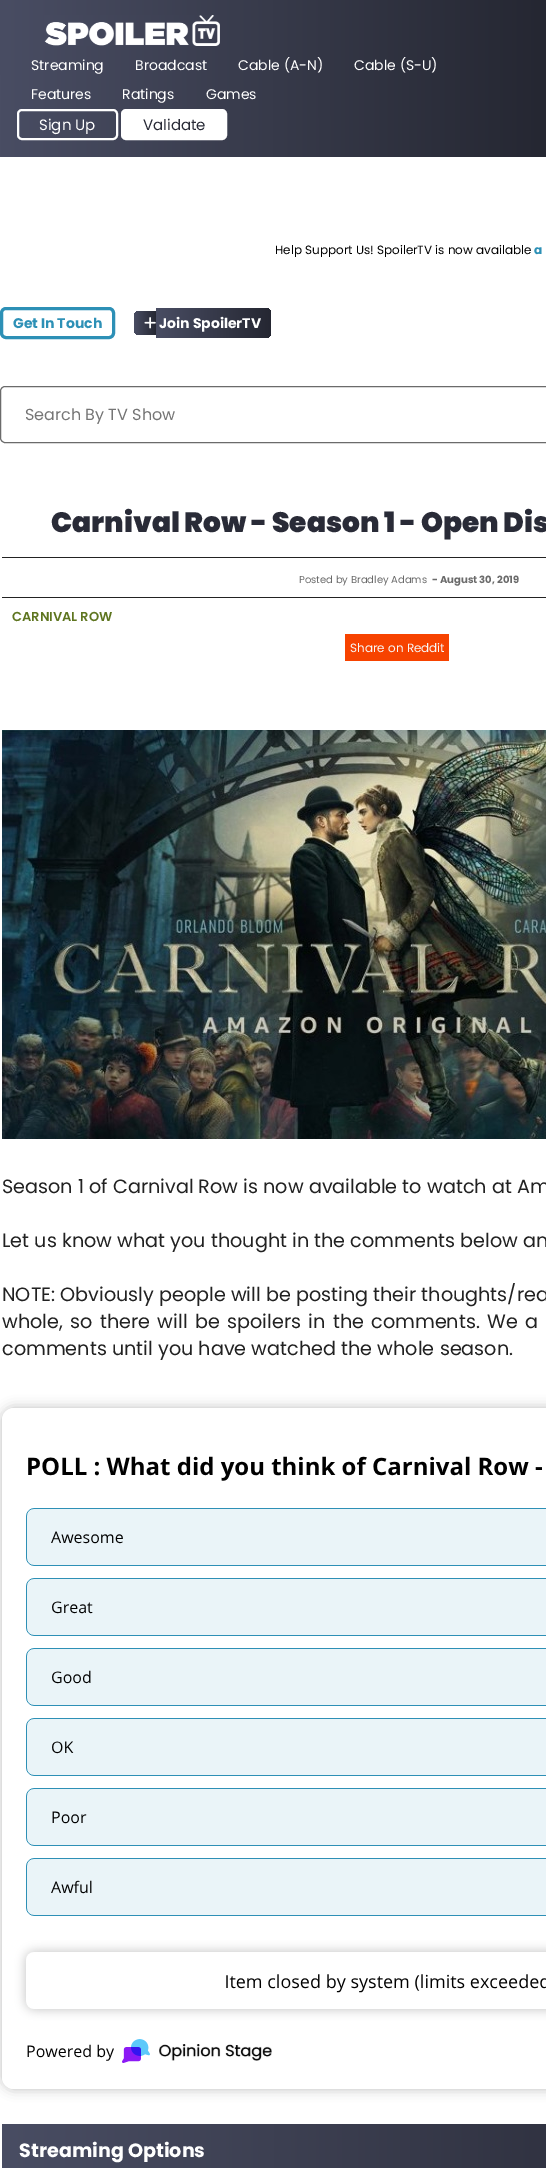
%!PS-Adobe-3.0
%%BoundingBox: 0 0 546 2168
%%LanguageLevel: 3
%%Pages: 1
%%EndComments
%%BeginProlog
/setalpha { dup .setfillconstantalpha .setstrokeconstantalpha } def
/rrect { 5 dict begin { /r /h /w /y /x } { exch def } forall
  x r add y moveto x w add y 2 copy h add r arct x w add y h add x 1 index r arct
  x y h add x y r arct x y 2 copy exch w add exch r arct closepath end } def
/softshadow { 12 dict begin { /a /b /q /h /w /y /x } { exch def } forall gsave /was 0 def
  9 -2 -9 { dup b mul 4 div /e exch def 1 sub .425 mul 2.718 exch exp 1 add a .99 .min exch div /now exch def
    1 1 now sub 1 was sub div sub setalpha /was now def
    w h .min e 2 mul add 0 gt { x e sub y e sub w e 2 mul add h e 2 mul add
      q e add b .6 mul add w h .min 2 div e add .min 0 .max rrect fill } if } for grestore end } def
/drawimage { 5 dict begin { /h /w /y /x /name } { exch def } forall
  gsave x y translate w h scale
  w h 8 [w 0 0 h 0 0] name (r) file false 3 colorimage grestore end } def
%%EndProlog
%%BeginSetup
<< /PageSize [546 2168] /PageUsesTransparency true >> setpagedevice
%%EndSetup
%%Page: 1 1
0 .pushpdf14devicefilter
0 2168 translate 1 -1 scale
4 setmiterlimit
1 setgray
0 0 546 2168 rectfill
gsave newpath 0 0 moveto 546 0 lineto 546 157 lineto 0 157 lineto closepath clip newpath
<< /ShadingType 2 /ColorSpace /DeviceRGB /Coords [0 78 546 77] /Extend [true true] /Function << /FunctionType 2 /Domain [0 1] /C0 [0.286 0.302 0.388] /C1 [0.145 0.153 0.196] /N 1 >> >> shfill grestore
(images/1.raw) 44 15 176 31 drawimage
2 setlinewidth
18 110 99 29 4 rrect stroke
122 110 104 29 4 rrect gsave fill grestore
stroke
0.176 0.565 0.714 setrgbcolor
3 setlinewidth
1.5 308.5 112 29 4.5 rrect stroke
gsave newpath 140 311 moveto 156 311 lineto 156 335 lineto 140 335 lineto 136.5 335 134 332.5 134 329 curveto 134 317 lineto 134 313.5 136.5 311 140 311 curveto closepath clip newpath
<< /ShadingType 2 /ColorSpace /DeviceRGB /Coords [134 323 156 323] /Extend [true true] /Function << /FunctionType 2 /Domain [0 1] /C0 [0.286 0.302 0.388] /C1 [0.145 0.153 0.196] /N 1 >> >> shfill grestore
gsave newpath 156 308 moveto 265 308 lineto 268.5 308 271 310.5 271 314 curveto 271 332 lineto 271 335.5 268.5 338 265 338 curveto 156 338 lineto closepath clip newpath
<< /ShadingType 2 /ColorSpace /DeviceRGB /Coords [156 323 271 323] /Extend [true true] /Function << /FunctionType 2 /Domain [0 1] /C0 [0.286 0.302 0.388] /C1 [0.145 0.153 0.196] /N 1 >> >> shfill grestore
(images/2.raw) 144 317 12 12 drawimage
0.42 setgray
1 setlinewidth
0.5 386.5 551 56 4.5 rrect stroke
0.133 setgray
2 557 544 1 rectfill
2 597 544 1 rectfill
0.969 0.263 0 setrgbcolor
345 634 104 27 rectfill
(images/3.raw) 2 730 544 409 drawimage
0 setgray
2 1408 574 681 12 6 0.25 softshadow
(images/4.raw) 2 1408 544 681 drawimage
gsave newpath 2 2124 moveto 546 2124 lineto 546 2168 lineto 2 2168 lineto closepath clip newpath
<< /ShadingType 2 /ColorSpace /DeviceRGB /Coords [2 2151 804 2151] /Extend [true true] /Function << /FunctionType 2 /Domain [0 1] /C0 [0.286 0.302 0.388] /C1 [0.145 0.153 0.196] /N 1 >> >> shfill grestore
/Poppins-Regular [14 0 0 -14 0 0] selectfont
1 setgray
31 70 moveto (Streaming) show
135 70 moveto (Broadcast) show
238 70 moveto (Cable \(A-N\)) show
354 70 moveto (Cable \(S-U\)) show
31 99 moveto (Features) show
122 99 moveto (Ratings) show
206 99 moveto (Games) show
/Poppins-Regular [15 0 0 -15 0 0] selectfont
39 130 moveto (Sign Up) show
0.161 0.169 0.216 setrgbcolor
143 130 moveto (Validate) show
/Poppins-Regular [12 0 0 -12 0 0] selectfont
0 setgray
275 254 moveto (Help Support Us! SpoilerTV is now available) show
/Poppins-Bold [12 0 0 -12 0 0] selectfont
0.176 0.565 0.714 setrgbcolor
534 254 moveto (a) show
/Poppins-Bold [14 0 0 -14 0 0] selectfont
13 328 moveto (Get In Touch) show
1 setgray
159 328 moveto (Join SpoilerTV) show
/Poppins-Regular [16 0 0 -16 0 0] selectfont
0.459 setgray
25 420 moveto (Search By TV Show) show
/Poppins-Black [28 0 0 -28 0 0] selectfont
0.161 0.169 0.216 setrgbcolor
51 532 moveto (Carnival Row - Season 1 - Open Dis) show
/Poppins-Regular [10 0 0 -10 0 0] selectfont
0.42 setgray
299 583 moveto (Posted by Bradley Adams) show
/Poppins-Bold [10 0 0 -10 0 0] selectfont
432 583 moveto (- August 30, 2019) show
/Poppins-SemiBold [13 0 0 -13 0 0] selectfont
0.369 0.459 0.122 setrgbcolor
12 621 moveto (CARNIVAL ROW) show
/Poppins-Regular [12 0 0 -12 0 0] selectfont
0.969 setgray
350 652 moveto (Share on Reddit) show
/Poppins-Regular [19.2 0 0 -19.2 0 0] selectfont
0.133 setgray
2 1193 moveto (Season 1 of Carnival Row is now available to watch at Am) show
2 1247 moveto (Let us know what you thought in the comments below an) show
2 1301 moveto (NOTE: Obviously people will be posting their thoughts/rea) show
2 1328 moveto 2.25 0 32 (whole, so there will be spoilers in the comments. We a) widthshow
2 1355 moveto (comments until you have watched the whole season.) show
/Poppins-Bold [19.2 0 0 -19.2 0 0] selectfont
1 setgray
19 2157 moveto (Streaming Options) show
.poppdf14devicefilter showpage
%%EOF
